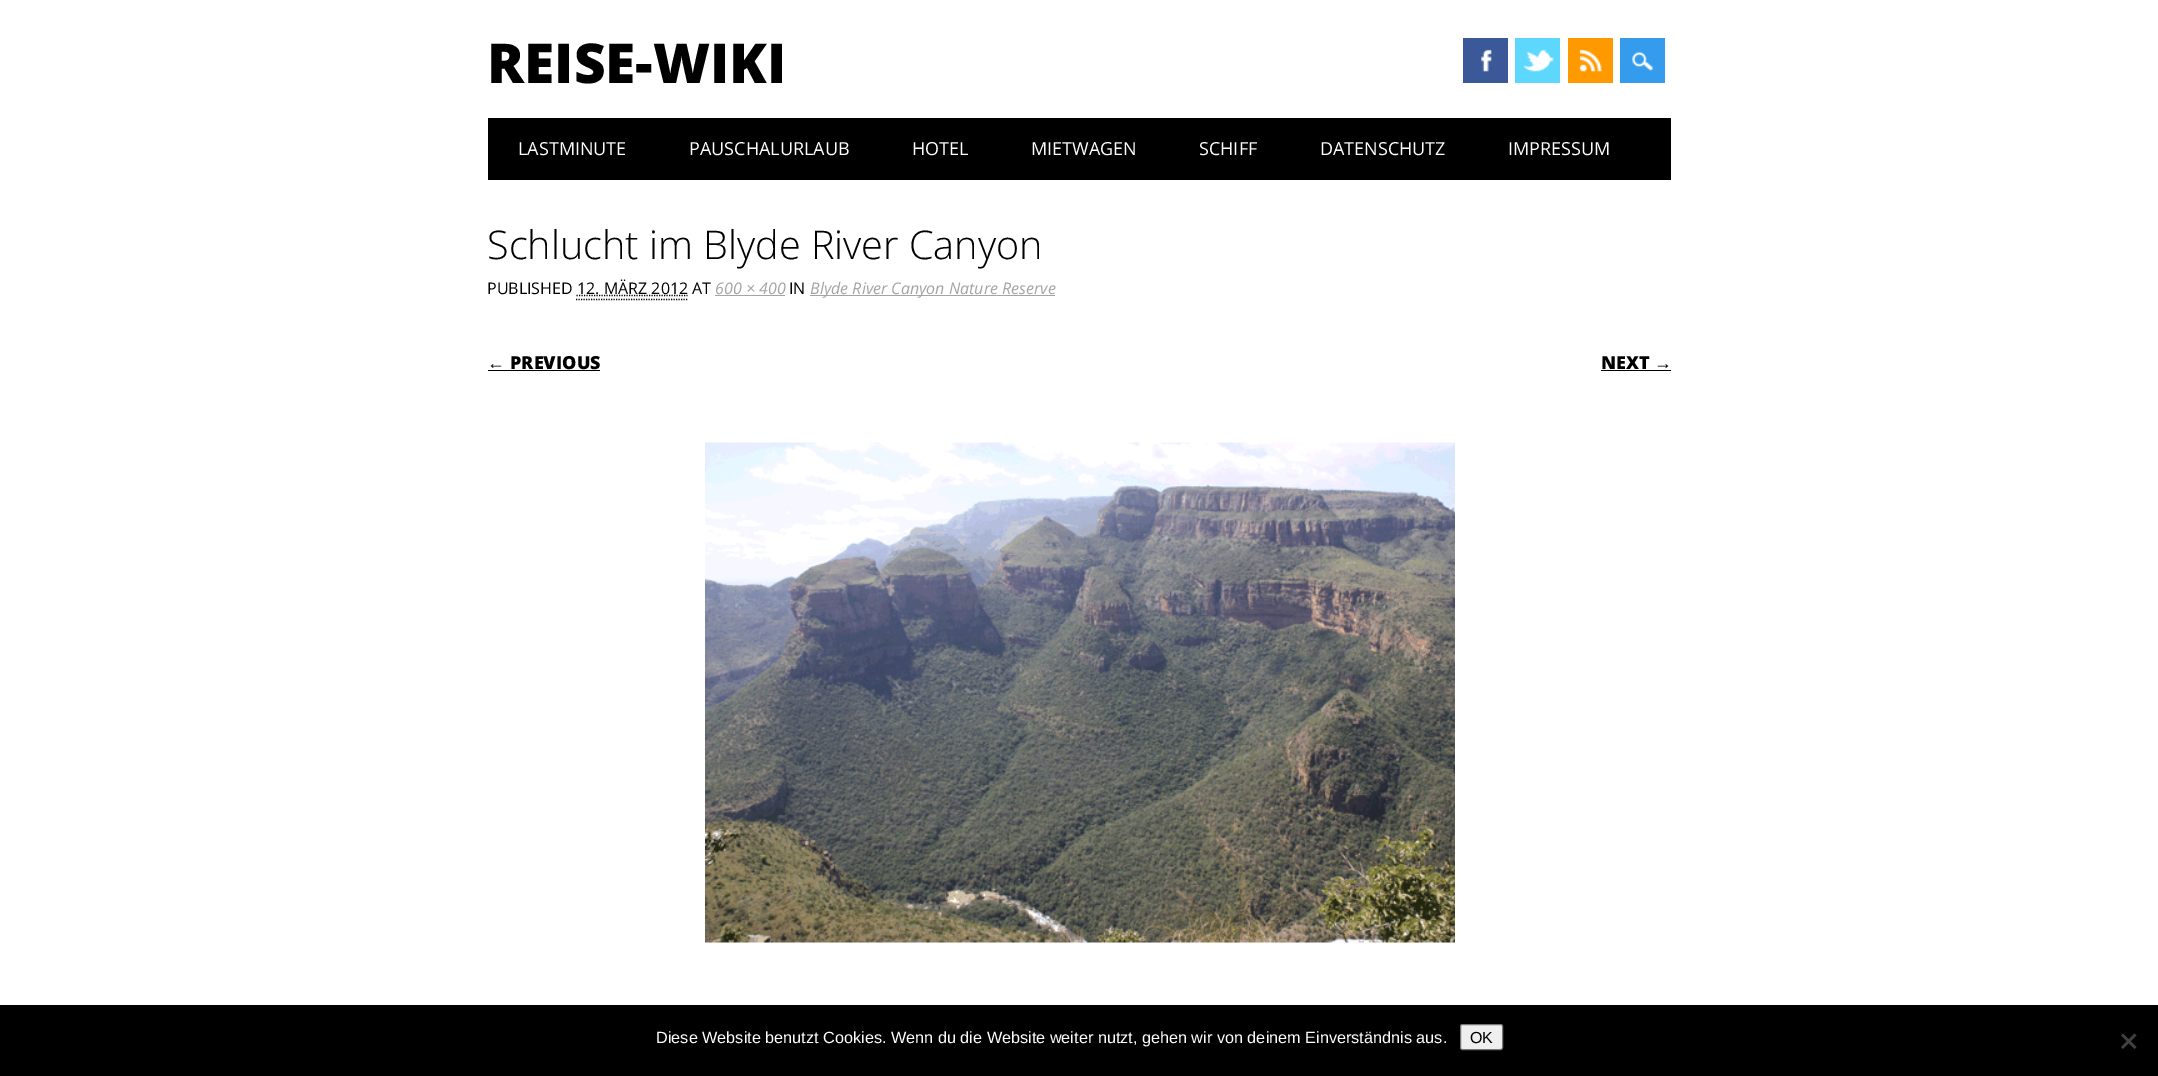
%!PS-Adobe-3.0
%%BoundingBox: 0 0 2158 1076
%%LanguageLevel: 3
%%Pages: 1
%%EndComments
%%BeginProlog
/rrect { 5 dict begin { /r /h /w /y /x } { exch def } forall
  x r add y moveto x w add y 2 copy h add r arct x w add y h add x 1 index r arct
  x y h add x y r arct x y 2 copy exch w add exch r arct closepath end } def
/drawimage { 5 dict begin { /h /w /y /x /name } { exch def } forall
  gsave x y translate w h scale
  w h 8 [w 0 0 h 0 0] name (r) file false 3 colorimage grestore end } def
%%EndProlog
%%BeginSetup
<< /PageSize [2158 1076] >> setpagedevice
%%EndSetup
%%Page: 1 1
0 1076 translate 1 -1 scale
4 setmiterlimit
1 setgray
0 0 2158 1076 rectfill
0.231 0.349 0.596 setrgbcolor
1463 38 45 45 rectfill
(images/1.raw) 1481 49 11 23 drawimage
0.365 0.843 0.988 setrgbcolor
1515 38 45 45 rectfill
(images/2.raw) 1523 49 31 23 drawimage
0.996 0.6 0 setrgbcolor
1568 38 45 45 rectfill
(images/3.raw) 1579 49 23 23 drawimage
0.208 0.608 0.929 setrgbcolor
1620 38 45 45 rectfill
(images/4.raw) 1632 52 21 19 drawimage
0 setgray
488 118 1183 62 rectfill
1.2 setlinewidth
[1.25 1.25] 0 setdash
newpath 576 299.5 moveto 687.5 299.5 lineto stroke
newpath 576.5 295.5 moveto 687.5 295.5 lineto stroke
0.643 setgray
715 295 70 1 rectfill
810 295 245 1 rectfill
0 setgray
488 370 112 1 rectfill
1601 370 70 1 rectfill
(images/5.raw) 705 442 750 501 drawimage
0 1005 2158 71 rectfill
0.937 setgray
1460.5 1024.5 42 25 2 rrect gsave fill grestore
0.463 setgray
1 setlinewidth
[] 0 setdash
stroke
0.251 setgray
newpath 2134.5 1033.5 moveto 2136.5 1035.5 lineto 2123 1049 lineto 2121 1047 lineto closepath fill
newpath 2121 1035.5 moveto 2123 1033.5 lineto 2136.5 1047 lineto 2134.5 1049 lineto closepath fill
/OpenSans-ExtraBold [55 0 0 -55 0 0] selectfont
0 setgray
487 83 moveto (REISE-WIKI) show
/OpenSans-Regular [18 0 0 -18 0 0] selectfont
1 setgray
518 155 moveto (LASTMINUTE) show
689 155 moveto (PAUSCHALURLAUB) show
912 155 moveto (HOTEL) show
1031 155 moveto (MIETWAGEN) show
1199 155 moveto (SCHIFF) show
1320 155 moveto (DATENSCHUTZ) show
1508 155 moveto (IMPRESSUM) show
/OpenSans-Light [39.6 0 0 -39.6 0 0] selectfont
0 setgray
487 259 moveto (Schlucht im Blyde River Canyon) show
/OpenSans-Regular [16 0 0 -16 0 0] selectfont
487 294 moveto (PUBLISHED) show
577 294 moveto (12. MÄRZ 2012 AT) show
/OpenSans-Italic [16 0 0 -16 0 0] selectfont
0.643 setgray
715 294 moveto (600 × 400) show
/OpenSans-Regular [16 0 0 -16 0 0] selectfont
0 setgray
789 294 moveto (IN) show
/OpenSans-Italic [16 0 0 -16 0 0] selectfont
0.643 setgray
810 294 moveto (Blyde River Canyon Nature Reserve) show
/LiberationSans-Bold [18 0 0 -18 0 0] selectfont
0 setgray
487 369 moveto (←) show
/OpenSans-ExtraBold [18 0 0 -18 0 0] selectfont
510 369 moveto (PREVIOUS) show
1601 369 moveto (NEXT) show
/LiberationSans-Bold [18 0 0 -18 0 0] selectfont
1654 369 moveto (→) show
/LiberationSans-Regular [16.25 0 0 -16.25 0 0] selectfont
1 setgray
656 1043 moveto (Diese Website benutzt Cookies. Wenn du die Website weiter nutzt, gehen wir von deinem Einverständnis aus.) show
/LiberationSans-Regular [16 0 0 -16 0 0] selectfont
0 setgray
1470 1043 moveto (OK) show
showpage
%%EOF
